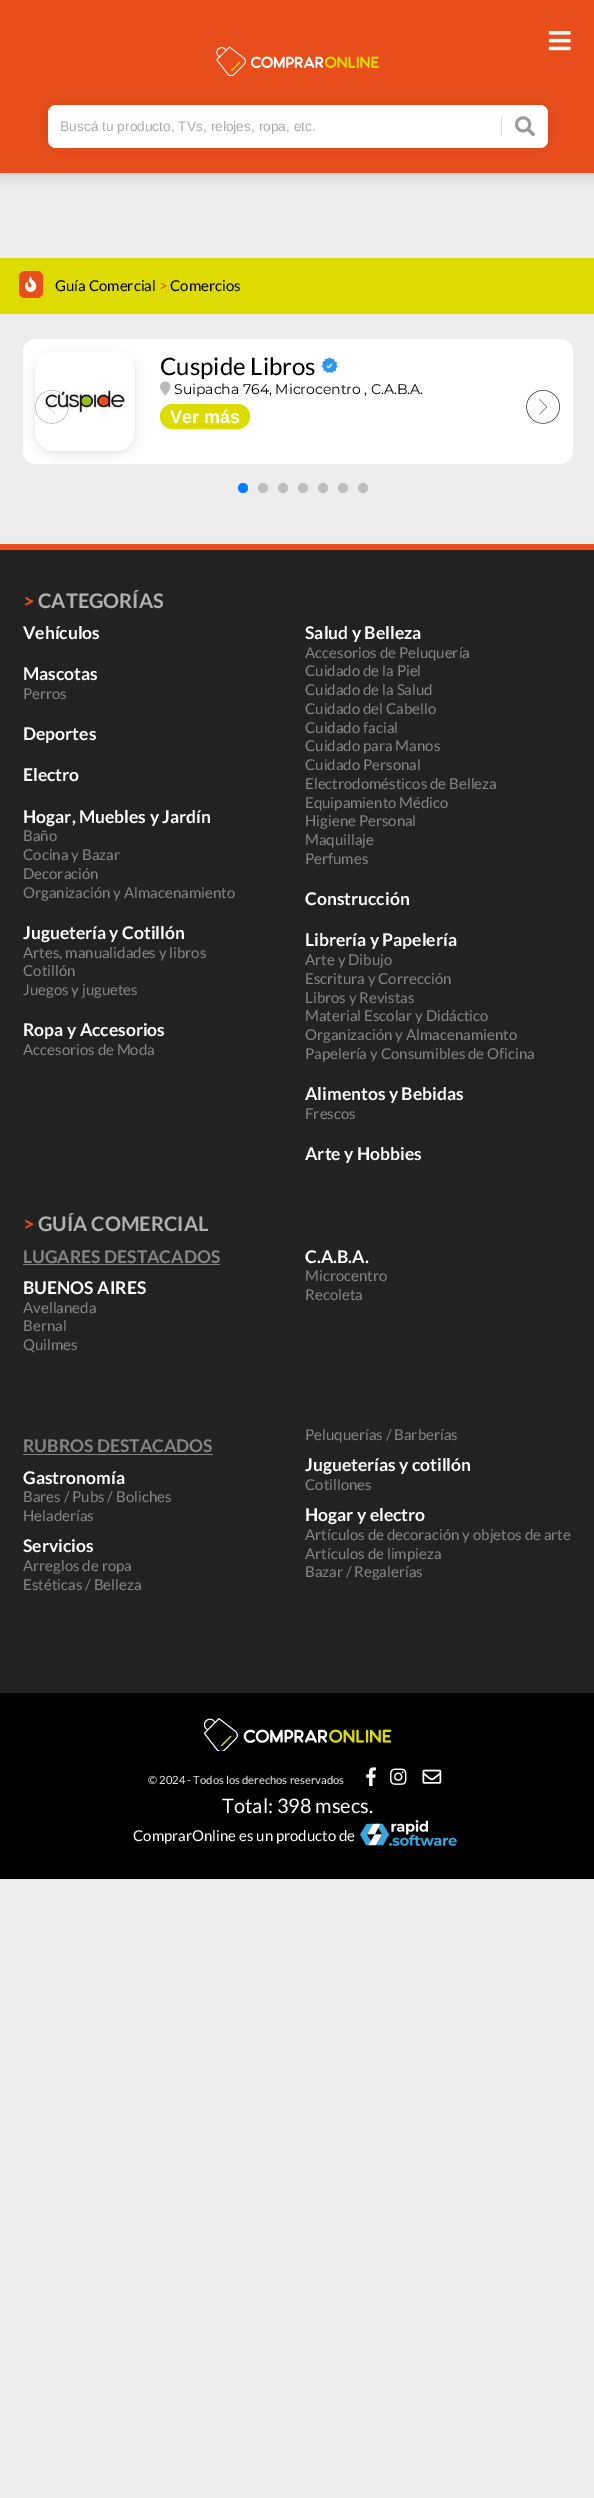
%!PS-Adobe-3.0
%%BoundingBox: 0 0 594 2498
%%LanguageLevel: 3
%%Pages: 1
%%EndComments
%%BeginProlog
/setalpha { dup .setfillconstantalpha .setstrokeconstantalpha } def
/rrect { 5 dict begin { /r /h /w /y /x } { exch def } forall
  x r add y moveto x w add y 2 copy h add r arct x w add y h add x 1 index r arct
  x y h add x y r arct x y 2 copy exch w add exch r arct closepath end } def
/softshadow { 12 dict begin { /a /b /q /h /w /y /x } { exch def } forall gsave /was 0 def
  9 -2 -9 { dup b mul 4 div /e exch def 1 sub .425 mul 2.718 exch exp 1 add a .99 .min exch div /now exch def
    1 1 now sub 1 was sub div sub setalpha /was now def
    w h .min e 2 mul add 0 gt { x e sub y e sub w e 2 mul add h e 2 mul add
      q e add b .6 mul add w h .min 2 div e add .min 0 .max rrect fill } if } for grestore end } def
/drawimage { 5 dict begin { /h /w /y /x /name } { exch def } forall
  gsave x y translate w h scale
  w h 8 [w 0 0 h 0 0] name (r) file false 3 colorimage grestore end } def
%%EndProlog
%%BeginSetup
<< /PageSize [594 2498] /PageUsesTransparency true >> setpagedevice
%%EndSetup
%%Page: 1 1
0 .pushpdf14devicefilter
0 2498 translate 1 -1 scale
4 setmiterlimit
0.925 setgray
0 0 594 2498 rectfill
0 setgray
0 0 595 173 0 6 0.2 softshadow
0.91 0.306 0.106 setrgbcolor
0 0 594 173 rectfill
(images/1.raw) 548 31 23 20 drawimage
(images/2.raw) 216 46 163 30 drawimage
0 setgray
48 105 500 43 8 6 0.1 softshadow
1 setgray
48 105 500 43 8 rrect fill
0.867 setgray
501 116 1 20 rectfill
(images/3.raw) 515 116 20 21 drawimage
0.867 0.859 0 setrgbcolor
0 258 594 56 rectfill
0.91 0.306 0.106 setrgbcolor
19 271 24 27 6 rrect fill
(images/4.raw) 25 276 12 16 drawimage
1 setgray
23 339 550 125 13 rrect fill
0.388 setgray
35 354 100 100 20 5 0.2 softshadow
1 setgray
35 351 100 100 20 rrect fill
(images/6.raw) 44 389 82 62 drawimage
(images/5.raw) 35 390 34 34 drawimage
(images/7.raw) 321 357 17 17 drawimage
(images/8.raw) 160 381 11 15 drawimage
0.867 0.859 0 setrgbcolor
160 404 90 25 12.5 rrect fill
(images/9.raw) 526 390 34 34 drawimage
0 0.478 1 setrgbcolor
newpath 243 488 5 0 360 arc closepath fill
0.741 setgray
newpath 263 488 5 0 360 arc closepath fill
newpath 283 488 5 0 360 arc closepath fill
newpath 303 488 5 0 360 arc closepath fill
newpath 323 488 5 0 360 arc closepath fill
newpath 343 488 5 0 360 arc closepath fill
newpath 363 488 5 0 360 arc closepath fill
0.133 setgray
0 550 594 1143 rectfill
0.91 0.306 0.106 setrgbcolor
0 544 594 6 rectfill
0.522 setgray
23 1264 197 1 rectfill
23 1454 190 1 rectfill
0 setgray
0 1693 594 186 rectfill
(images/10.raw) 204 1718 187 33 drawimage
(images/11.raw) 366 1767 10 20 drawimage
(images/12.raw) 390 1768 17 17 drawimage
(images/13.raw) 422 1769 20 15 drawimage
(images/14.raw) 360 1820 97 26 drawimage
/LiberationSans-Regular [13.75 0 0 -13.75 0 0] selectfont
0.667 setgray
60 131 moveto (Buscá tu producto, TVs, relojes, ropa, etc.) show
/Lato-Regular [15 0 0 -15 0 0] selectfont
0 setgray
55 291 moveto (Guía Comercial) show
0.91 0.306 0.106 setrgbcolor
159 291 moveto (>) show
0 setgray
170 291 moveto (Comercios) show
/Lato-Regular [24 0 0 -24 0 0] selectfont
160 375 moveto (Cuspide Libros) show
/Montserrat-Regular [14 0 0 -14 0 0] selectfont
174 394 moveto (Suipacha 764, Microcentro , C.A.B.A.) show
/LiberationSans-Bold [18 0 0 -18 0 0] selectfont
1 setgray
170 423 moveto (Ver más) show
/Lato-Bold [20 0 0 -20 0 0] selectfont
0.91 0.306 0.106 setrgbcolor
23 608 moveto (>) show
0.694 setgray
38 608 moveto (CATEGORÍAS) show
/Lato-Bold [17.5 0 0 -17.5 0 0] selectfont
1 setgray
23 639 moveto (Vehículos) show
305 639 moveto (Salud y Belleza) show
/Lato-Regular [15 0 0 -15 0 0] selectfont
0.522 setgray
305 658 moveto (Accesorios de Peluquería) show
305 676 moveto (Cuidado de la Piel) show
305 695 moveto (Cuidado de la Salud) show
305 714 moveto (Cuidado del Cabello) show
305 733 moveto (Cuidado facial) show
305 751 moveto (Cuidado para Manos) show
305 770 moveto (Cuidado Personal) show
305 789 moveto (Electrodomésticos de Belleza) show
305 808 moveto (Equipamiento Médico) show
305 826 moveto (Higiene Personal) show
305 845 moveto (Maquillaje) show
305 864 moveto (Perfumes) show
/Lato-Bold [17.5 0 0 -17.5 0 0] selectfont
1 setgray
23 680 moveto (Mascotas) show
/Lato-Regular [15 0 0 -15 0 0] selectfont
0.522 setgray
23 699 moveto (Perros) show
/Lato-Bold [17.5 0 0 -17.5 0 0] selectfont
1 setgray
23 740 moveto (Deportes) show
23 781 moveto (Electro) show
23 823 moveto (Hogar, Muebles y Jardín) show
/Lato-Regular [15 0 0 -15 0 0] selectfont
0.522 setgray
23 841 moveto (Baño) show
23 860 moveto (Cocina y Bazar) show
23 879 moveto (Decoración) show
23 898 moveto (Organización y Almacenamiento) show
/Lato-Bold [17.5 0 0 -17.5 0 0] selectfont
1 setgray
305 905 moveto (Construcción) show
23 939 moveto (Juguetería y Cotillón) show
/Lato-Regular [15 0 0 -15 0 0] selectfont
0.522 setgray
23 958 moveto (Artes, manualidades y libros) show
23 976 moveto (Cotillón) show
23 995 moveto (Juegos y juguetes) show
/Lato-Bold [17.5 0 0 -17.5 0 0] selectfont
1 setgray
305 946 moveto (Librería y Papelería) show
/Lato-Regular [15 0 0 -15 0 0] selectfont
0.522 setgray
305 965 moveto (Arte y Dibujo) show
305 984 moveto (Escritura y Corrección) show
305 1003 moveto (Libros y Revistas) show
305 1021 moveto (Material Escolar y Didáctico) show
305 1040 moveto (Organización y Almacenamiento) show
305 1059 moveto (Papelería y Consumibles de Oficina) show
/Lato-Bold [17.5 0 0 -17.5 0 0] selectfont
1 setgray
23 1036 moveto (Ropa y Accesorios) show
/Lato-Regular [15 0 0 -15 0 0] selectfont
0.522 setgray
23 1055 moveto (Accesorios de Moda) show
/Lato-Bold [17.5 0 0 -17.5 0 0] selectfont
1 setgray
305 1100 moveto (Alimentos y Bebidas) show
/Lato-Regular [15 0 0 -15 0 0] selectfont
0.522 setgray
305 1119 moveto (Frescos) show
/Lato-Bold [17.5 0 0 -17.5 0 0] selectfont
1 setgray
305 1160 moveto (Arte y Hobbies) show
/Lato-Bold [20 0 0 -20 0 0] selectfont
0.91 0.306 0.106 setrgbcolor
23 1231 moveto (>) show
0.694 setgray
38 1231 moveto (GUÍA COMERCIAL) show
/Lato-Bold [17.5 0 0 -17.5 0 0] selectfont
0.522 setgray
23 1263 moveto (LUGARES DESTACADOS) show
1 setgray
305 1263 moveto (C.A.B.A.) show
/Lato-Regular [15 0 0 -15 0 0] selectfont
0.522 setgray
305 1281 moveto (Microcentro) show
305 1300 moveto (Recoleta) show
/Lato-Bold [17.5 0 0 -17.5 0 0] selectfont
1 setgray
23 1294 moveto (BUENOS AIRES) show
/Lato-Regular [15 0 0 -15 0 0] selectfont
0.522 setgray
23 1313 moveto (Avellaneda) show
23 1331 moveto (Bernal) show
23 1350 moveto (Quilmes) show
305 1440 moveto (Peluquerías / Barberías) show
/Lato-Bold [17.5 0 0 -17.5 0 0] selectfont
23 1452 moveto (RUBROS DESTACADOS) show
1 setgray
305 1471 moveto (Jugueterías y cotillón) show
23 1484 moveto (Gastronomía) show
/Lato-Regular [15 0 0 -15 0 0] selectfont
0.522 setgray
305 1490 moveto (Cotillones) show
23 1502 moveto (Bares / Pubs / Boliches) show
23 1521 moveto (Heladerías) show
/Lato-Bold [17.5 0 0 -17.5 0 0] selectfont
1 setgray
305 1521 moveto (Hogar y electro) show
/Lato-Regular [15 0 0 -15 0 0] selectfont
0.522 setgray
305 1540 moveto (Artículos de decoración y objetos de arte) show
/Lato-Bold [17.5 0 0 -17.5 0 0] selectfont
1 setgray
23 1552 moveto (Servicios) show
/Lato-Regular [15 0 0 -15 0 0] selectfont
0.522 setgray
305 1559 moveto (Artículos de limpieza) show
23 1571 moveto (Arreglos de ropa) show
305 1577 moveto (Bazar / Regalerías) show
23 1590 moveto (Estéticas / Belleza) show
/Lato-Regular [11.25 0 0 -11.25 0 0] selectfont
0.933 setgray
148 1784 moveto (© 2024 - Todos los derechos reservados) show
/Lato-Regular [20 0 0 -20 0 0] selectfont
1 setgray
222 1813 moveto (Total: 398 msecs.) show
/Lato-Regular [15 0 0 -15 0 0] selectfont
133 1841 moveto (ComprarOnline es un producto de) show
.poppdf14devicefilter showpage
%%EOF
